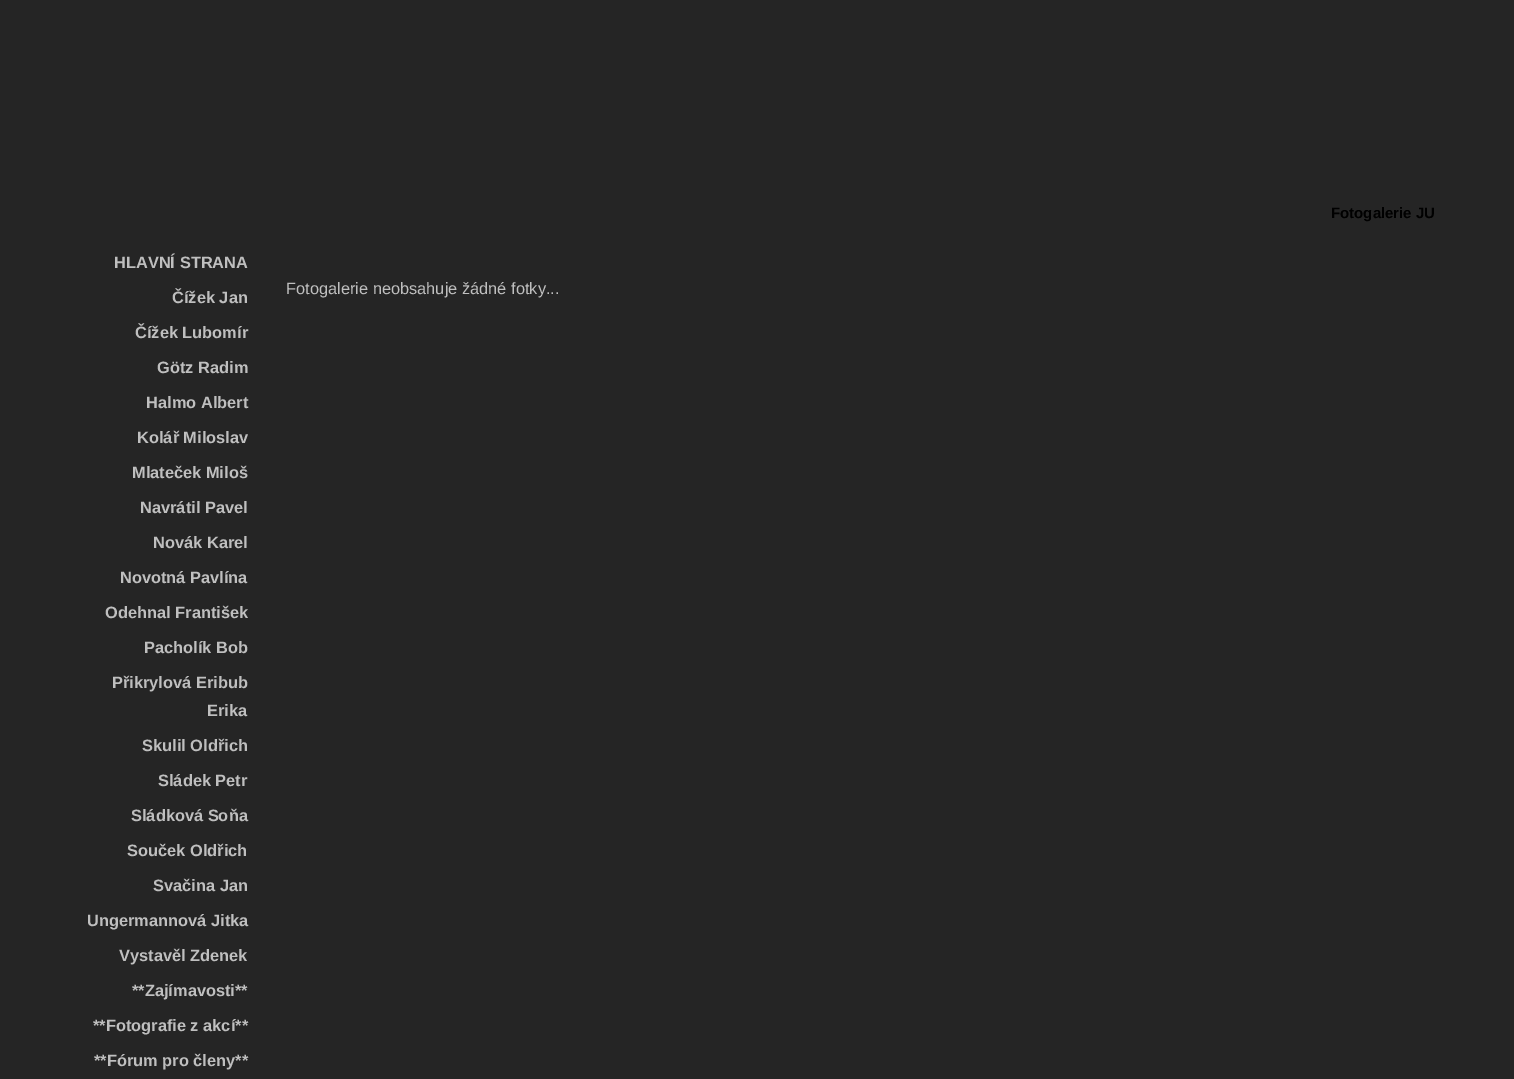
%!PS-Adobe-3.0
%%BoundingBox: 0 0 1514 1079
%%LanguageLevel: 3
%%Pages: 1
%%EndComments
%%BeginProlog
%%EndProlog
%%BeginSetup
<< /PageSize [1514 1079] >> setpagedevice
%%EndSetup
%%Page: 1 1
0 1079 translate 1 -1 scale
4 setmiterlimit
0.145 setgray
0 0 1514 1079 rectfill
/LiberationSans-Bold [15 0 0 -15 0 0] selectfont
0 setgray
1331 218 moveto (Fotogalerie JU) show
/LiberationSans-Bold [16.4 0 0 -16.4 0 0] selectfont
0.749 setgray
114 268 moveto (HLAVNÍ STRANA) show
172 303 moveto (Čížek Jan) show
135 338 moveto (Čížek Lubomír) show
157 373 moveto (Götz Radim) show
146 408 moveto (Halmo Albert) show
137 443 moveto (Kolář Miloslav) show
132 478 moveto (Mlateček Miloš) show
140 513 moveto (Navrátil Pavel) show
153 548 moveto (Novák Karel) show
120 583 moveto (Novotná Pavlína) show
105 618 moveto (Odehnal František) show
144 653 moveto (Pacholík Bob) show
112 688 moveto (Přikrylová Eribub) show
207 716 moveto (Erika) show
142 751 moveto (Skulil Oldřich) show
158 786 moveto (Sládek Petr) show
131 821 moveto (Sládková Soňa) show
127 856 moveto (Souček Oldřich) show
153 891 moveto (Svačina Jan) show
87 926 moveto (Ungermannová Jitka) show
119 961 moveto (Vystavěl Zdenek) show
132 996 moveto (**Zajímavosti**) show
93 1031 moveto (**Fotografie z akcí**) show
94 1066 moveto (**Fórum pro členy**) show
/LiberationSans-Regular [16.4 0 0 -16.4 0 0] selectfont
286 294 moveto (Fotogalerie neobsahuje žádné fotky...) show
showpage
%%EOF
